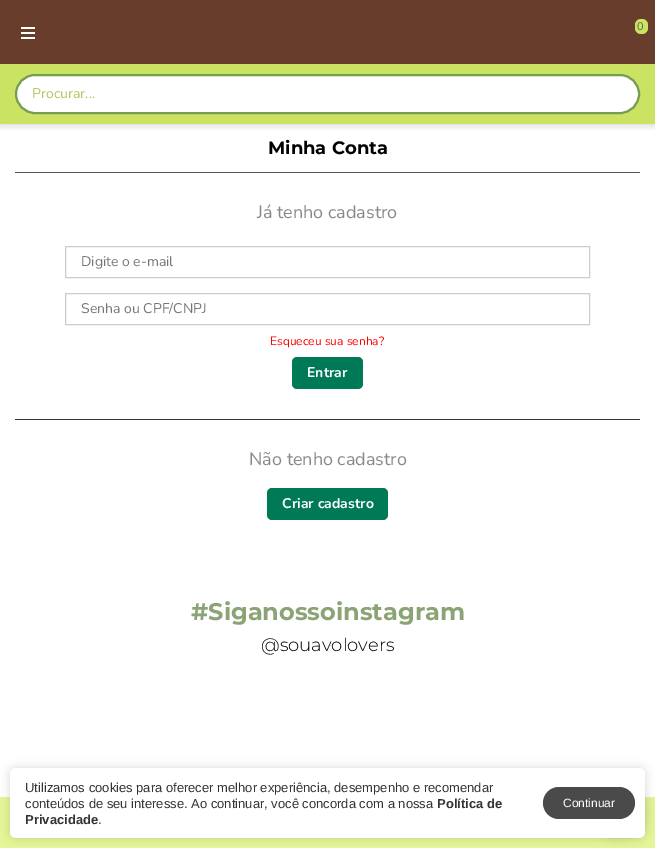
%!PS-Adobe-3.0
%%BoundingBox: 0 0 655 848
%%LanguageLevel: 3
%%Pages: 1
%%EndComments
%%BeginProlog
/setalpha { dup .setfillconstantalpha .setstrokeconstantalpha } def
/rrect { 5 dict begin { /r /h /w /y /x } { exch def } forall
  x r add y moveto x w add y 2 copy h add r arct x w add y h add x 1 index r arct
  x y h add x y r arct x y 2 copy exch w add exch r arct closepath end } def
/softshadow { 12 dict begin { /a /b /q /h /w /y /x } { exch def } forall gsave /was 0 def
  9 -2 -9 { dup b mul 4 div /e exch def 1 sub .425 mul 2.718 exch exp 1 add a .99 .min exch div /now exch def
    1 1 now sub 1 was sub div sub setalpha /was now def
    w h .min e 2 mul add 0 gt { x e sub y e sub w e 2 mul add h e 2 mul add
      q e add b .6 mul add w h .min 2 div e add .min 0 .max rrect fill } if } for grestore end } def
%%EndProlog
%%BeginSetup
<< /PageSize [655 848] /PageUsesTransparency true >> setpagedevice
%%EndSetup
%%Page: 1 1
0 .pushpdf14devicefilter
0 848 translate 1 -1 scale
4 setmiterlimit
1 setgray
0 0 655 848 rectfill
0.412 0.239 0.169 setrgbcolor
0 0 655 64 rectfill
gsave
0 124 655 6 rectclip
0 setgray
0 0 655 124 0 5 0.2 softshadow
grestore
1 setgray
21 27 14 2 rectfill
21 32 14 2 rectfill
21 37 14 2 rectfill
0.792 0.89 0.388 setrgbcolor
635 19 13 15 6 rrect fill
0 64 655 60 rectfill
1 setgray
16 75 623 38 19 rrect gsave fill grestore
0.463 0.616 0.322 setrgbcolor
2 setlinewidth
stroke
0.333 setgray
15 172 625 1 rectfill
0.2 setgray
15 419 625 1 rectfill
0.8 setgray
1 setlinewidth
65.5 246.5 524 31 rectstroke
65.5 293.5 524 31 rectstroke
0 0.475 0.337 setrgbcolor
292 357 71 32 5 rrect fill
267 488 121 32 5 rrect fill
0.894 0.965 0.596 setrgbcolor
0 797 655 51 rectfill
0 setgray
10 768 635 70 6 5 0.15 softshadow
593 786 52 52 26 5 0.1 softshadow
1 setgray
10 768 635 70 6 rrect fill
0.29 setgray
543 787 92 32 16 rrect fill
/Nunito-ExtraLight [11 0 0 -11 0 0] selectfont
0.38 0.388 0.353 setrgbcolor
637 30 moveto (0) show
/Nunito-ExtraLight [14 0 0 -14 0 0] selectfont
0.694 0.773 0.369 setrgbcolor
32 98 moveto (Procurar...) show
/Montserrat-Thin [18 0 0 -18 0 0] selectfont
0 setgray
268 154 moveto (Minha Conta) show
/Nunito-ExtraLight [18 0 0 -18 0 0] selectfont
0.533 setgray
257 218 moveto (Já tenho cadastro) show
/Nunito-ExtraLight [14 0 0 -14 0 0] selectfont
0.459 setgray
81 266 moveto (Digite o e-mail) show
81 313 moveto (Senha ou CPF/CNPJ) show
/Nunito-ExtraLight [12 0 0 -12 0 0] selectfont
1 0 0 setrgbcolor
270 345 moveto (Esqueceu sua senha?) show
/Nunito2-ExtraLight [14 0 0 -14 0 0] selectfont
1 setgray
307 377 moveto (Entrar) show
/Nunito-ExtraLight [18 0 0 -18 0 0] selectfont
0.533 setgray
249 465 moveto (Não tenho cadastro) show
/Nunito2-ExtraLight [14 0 0 -14 0 0] selectfont
1 setgray
282 508 moveto (Criar cadastro) show
/Montserrat-Thin [24 0 0 -24 0 0] selectfont
0.545 0.639 0.459 setrgbcolor
191 620 moveto (#Siganossoinstagram) show
/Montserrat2-Thin [18 0 0 -18 0 0] selectfont
0 setgray
261 651 moveto (@souavolovers) show
/LiberationSans-Regular [13 0 0 -13 0 0] selectfont
0.2 setgray
25 792 moveto (Utilizamos cookies para oferecer melhor experiência, desempenho e recomendar) show
25 808 moveto (conteúdos de seu interesse. Ao continuar, você concorda com a nossa) show
/LiberationSans-Bold [13 0 0 -13 0 0] selectfont
437 808 moveto (Política de) show
25 824 moveto (Privacidade) show
/LiberationSans-Regular [13 0 0 -13 0 0] selectfont
98 824 moveto (.) show
/LiberationSans-Regular [12 0 0 -12 0 0] selectfont
1 setgray
563 807 moveto (Continuar) show
.poppdf14devicefilter showpage
%%EOF
